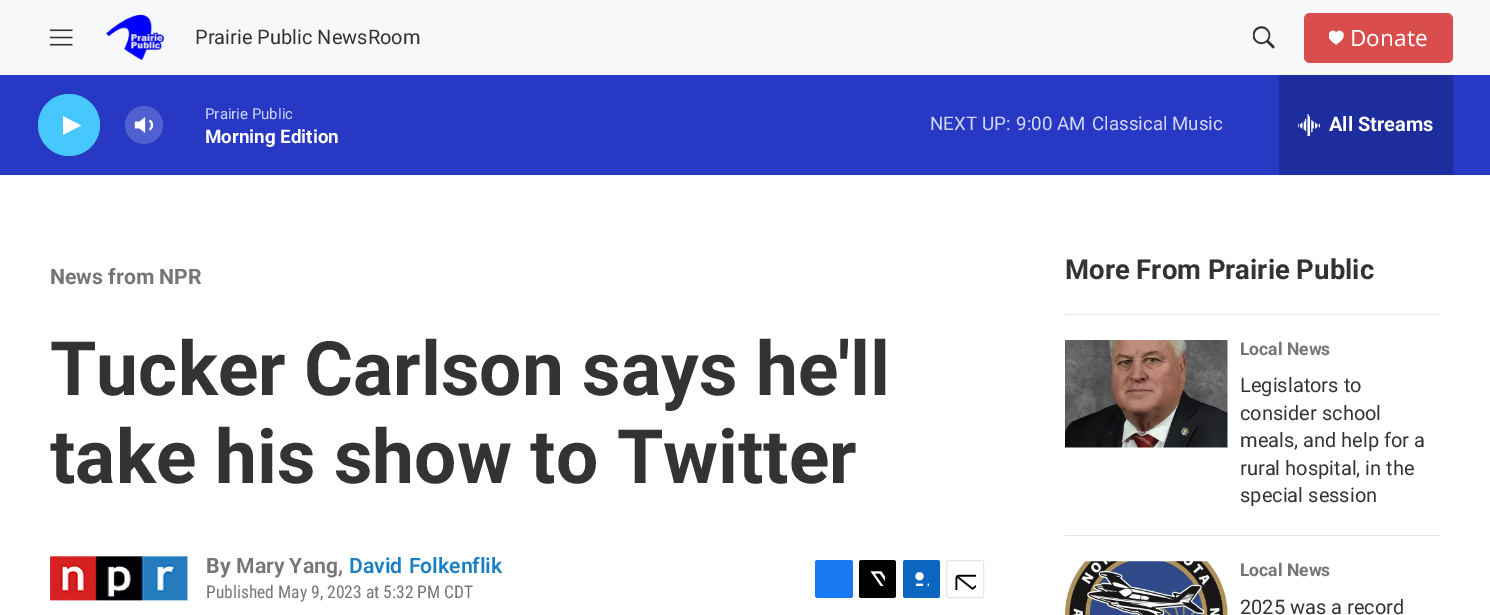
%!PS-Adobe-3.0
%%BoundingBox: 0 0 1490 615
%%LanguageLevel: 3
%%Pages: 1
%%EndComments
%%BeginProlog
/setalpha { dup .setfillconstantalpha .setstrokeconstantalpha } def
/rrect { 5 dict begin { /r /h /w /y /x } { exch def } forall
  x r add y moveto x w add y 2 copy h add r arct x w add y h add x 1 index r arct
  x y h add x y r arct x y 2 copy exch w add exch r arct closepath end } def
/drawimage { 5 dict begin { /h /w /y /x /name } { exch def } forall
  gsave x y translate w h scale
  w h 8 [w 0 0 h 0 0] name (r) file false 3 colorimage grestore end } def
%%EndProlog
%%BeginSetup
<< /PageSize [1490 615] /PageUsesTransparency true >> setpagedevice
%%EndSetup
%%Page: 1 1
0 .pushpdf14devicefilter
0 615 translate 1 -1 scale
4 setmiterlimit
1 setgray
0 0 1490 615 rectfill
0.965 0.973 0.98 setrgbcolor
0 0 1490 75 rectfill
0.961 setgray
0 175 1490 1 rectfill
(images/1.raw) 50 29 23 17 drawimage
(images/2.raw) 106 14 59 46 drawimage
(images/3.raw) 1253 26 22 23 drawimage
0.851 0.302 0.298 setrgbcolor
1304 13 149 50 6 rrect fill
gsave
1329 30 15 15 rectclip
1 setgray
newpath 1336 33 moveto 1334 26.5 1320.5 35 1336 44.5 curveto 1352 35 1338.5 26.5 1336 33 curveto closepath fill
grestore
0.149 0.22 0.769 setrgbcolor
0 75 1490 100 rectfill
0.275 0.784 1 setrgbcolor
newpath 69 125 31 0 360 arc closepath fill
gsave
63 114 18 24 rectclip
1 setgray
newpath 62.5 116 moveto 81 125.5 lineto 62.5 135 lineto closepath fill
grestore
(images/4.raw) 134 117 20 16 drawimage
0.2 setalpha
1 setgray
newpath 144 125 19 0 360 arc closepath fill
1 setalpha
0.118 0.176 0.616 setrgbcolor
1279 75 174 100 rectfill
(images/5.raw) 1298 114 22 22 drawimage
(images/6.raw) 50 556 138 45 drawimage
0.09 0.471 0.949 setrgbcolor
815 560 38 38 2.5 rrect fill
0 setgray
859 560 37 38 2.5 rrect fill
(images/7.raw) 870 571 15 15 drawimage
0.039 0.4 0.757 setrgbcolor
903 560 37 38 2.5 rrect fill
(images/8.raw) 915 572 14 14 drawimage
0.902 setgray
946.5 560.5 37 37 2 rrect stroke
(images/9.raw) 955 574 21 16 drawimage
1065 314 375 1 rectfill
1065 535 375 1 rectfill
(images/10.raw) 1065 340 163 108 drawimage
(images/11.raw) 1065 561 163 54 drawimage
/Roboto-Regular [20 0 0 -20 0 0] selectfont
0.2 setgray
195 44 moveto (Prairie Public NewsRoom) show
/NotoSans-Regular [22.5 0 0 -22.5 0 0] selectfont
1 setgray
1350 46 moveto (Donate) show
/Roboto-Regular [15 0 0 -15 0 0] selectfont
0.831 0.843 0.953 setrgbcolor
205 119 moveto (Prairie Public) show
/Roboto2-Bold [18.75 0 0 -18.75 0 0] selectfont
1 setgray
205 143 moveto (Morning Edition) show
/Roboto-Regular [18.75 0 0 -18.75 0 0] selectfont
0.831 0.843 0.953 setrgbcolor
930 130 moveto (NEXT UP:) show
1016 130 moveto (9:00 AM) show
1092 130 moveto (Classical Music) show
/Roboto2-Bold [20 0 0 -20 0 0] selectfont
1 setgray
1329 131 moveto (All Streams) show
/Roboto-Bold [21.25 0 0 -21.25 0 0] selectfont
0.463 setgray
50 284 moveto (News from NPR) show
/Roboto-Bold [75 0 0 -75 0 0] selectfont
0.2 setgray
50 395 moveto (Tucker Carlson says he'll) show
50 483 moveto (take his show to Twitter) show
/Roboto-Bold [21.25 0 0 -21.25 0 0] selectfont
0.463 setgray
206 573 moveto (By) show
/Roboto-SemiBold [21.25 0 0 -21.25 0 0] selectfont
236 573 moveto (Mary Yang) show
338 573 moveto (,) show
0.102 0.498 0.765 setrgbcolor
349 573 moveto 1 0 32 (David Folkenflik) widthshow
/RobotoCondensed-Regular [17.5 0 0 -17.5 0 0] selectfont
0.463 setgray
206 598 moveto (Published May 9, 2023 at 5:32 PM CDT) show
/Roboto-Bold [27.5 0 0 -27.5 0 0] selectfont
0.2 setgray
1065 279 moveto (More From Prairie Public) show
/Roboto-Bold [17.5 0 0 -17.5 0 0] selectfont
0.463 setgray
1240 355 moveto (Local News) show
/Roboto-Regular [20 0 0 -20 0 0] selectfont
0.2 setgray
1240 392 moveto (Legislators to) show
1240 420 moveto (consider school) show
1240 447 moveto (meals, and help for a) show
1240 475 moveto (rural hospital, in the) show
1240 502 moveto (special session) show
/Roboto-Bold [17.5 0 0 -17.5 0 0] selectfont
0.463 setgray
1240 576 moveto (Local News) show
/Roboto-Regular [20 0 0 -20 0 0] selectfont
0.2 setgray
1240 614 moveto (2025 was a record) show
.poppdf14devicefilter showpage
%%EOF
